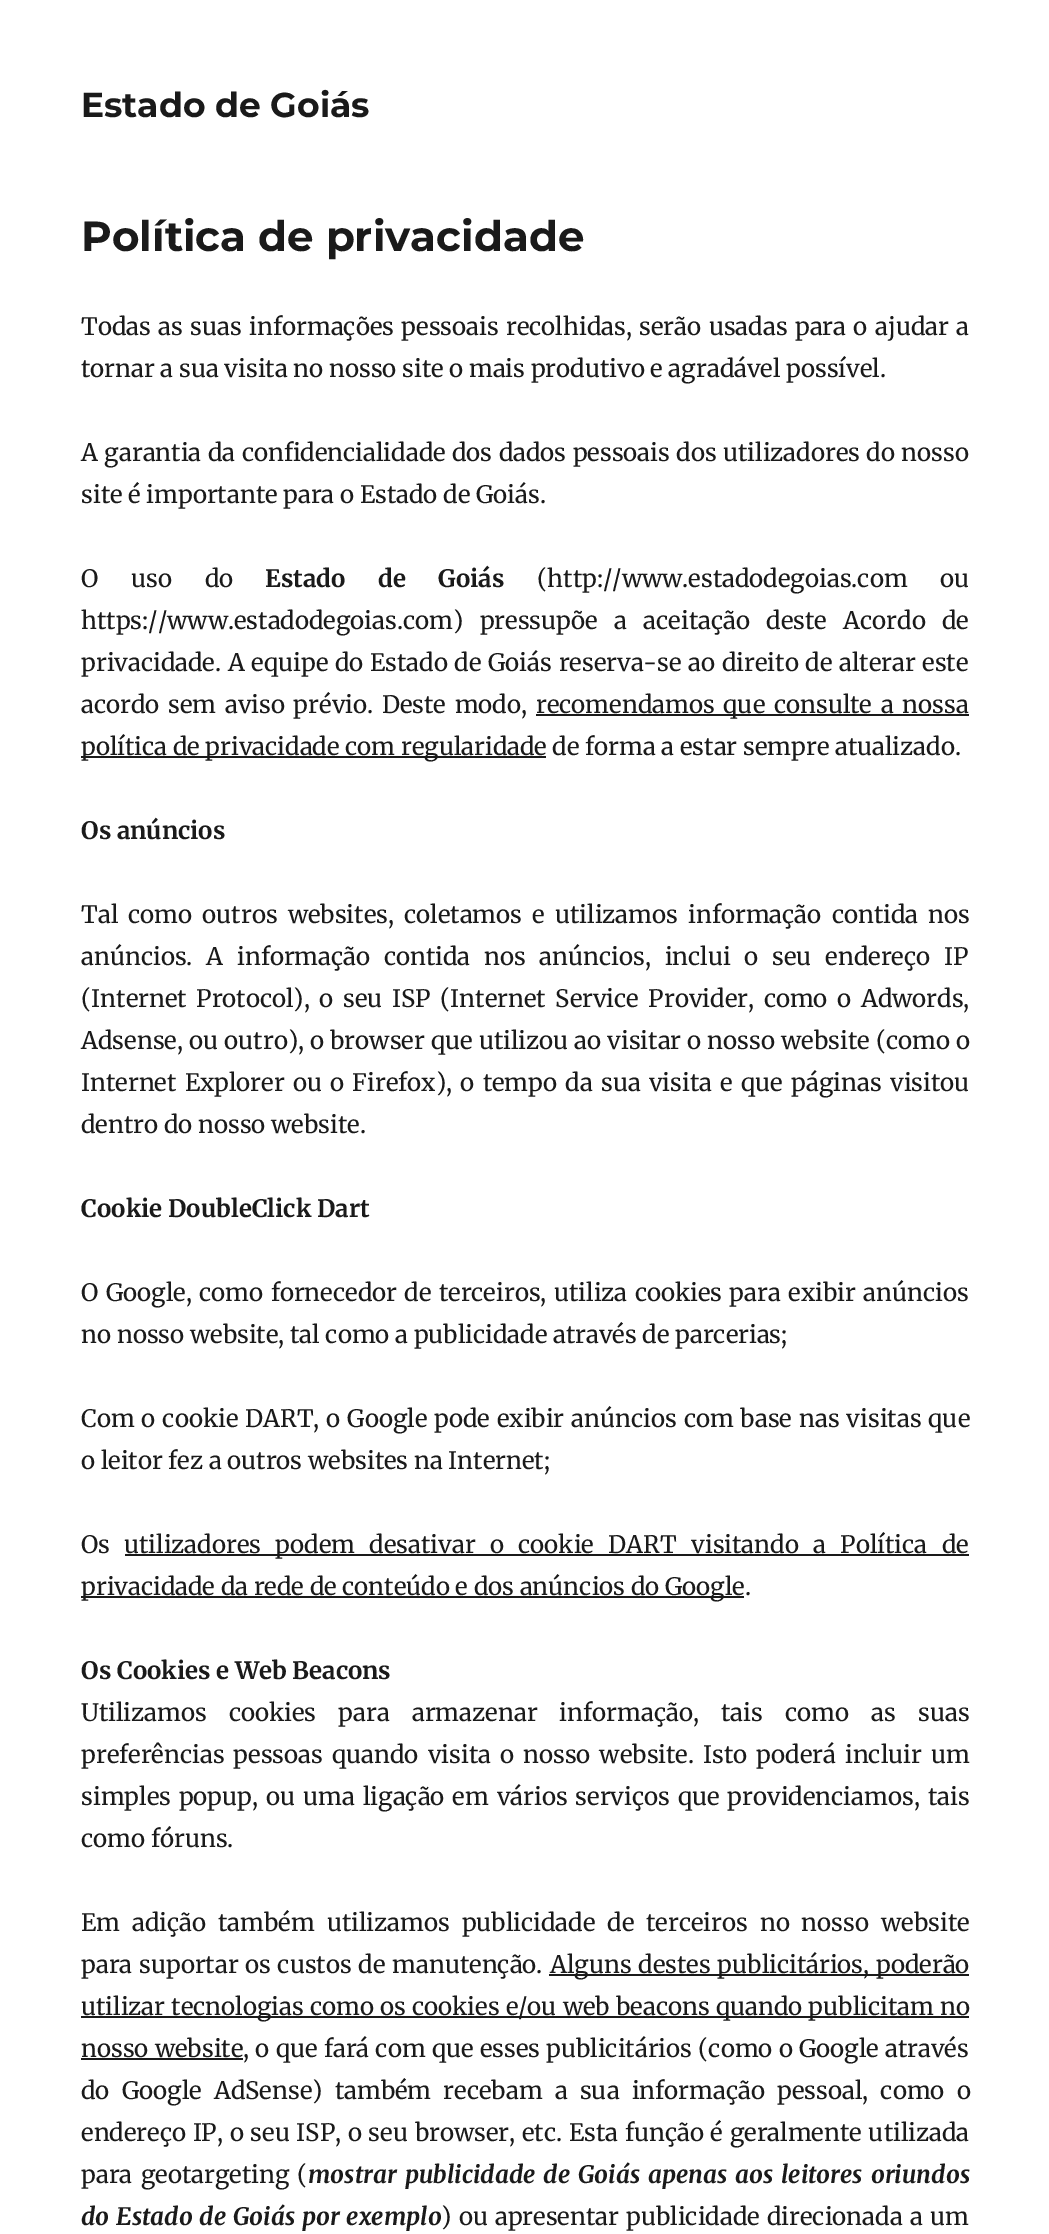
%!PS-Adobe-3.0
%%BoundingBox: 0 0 1049 2234
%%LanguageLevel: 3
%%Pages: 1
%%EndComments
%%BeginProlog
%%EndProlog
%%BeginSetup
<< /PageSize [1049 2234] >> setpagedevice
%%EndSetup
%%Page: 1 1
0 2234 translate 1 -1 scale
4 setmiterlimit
1 setgray
0 0 1049 2234 rectfill
0.102 setgray
536 714 433 2 rectfill
81 756 465 2 rectfill
125 1554 844 2 rectfill
81 1596 663 2 rectfill
549 1974 420 2 rectfill
81 2016 888 2 rectfill
81 2058 162 2 rectfill
/Montserrat-Bold [34.5 0 0 -34.5 0 0] selectfont
81 117 moveto (Estado de Goiás) show
/Montserrat-Bold [42 0 0 -42 0 0] selectfont
81 251 moveto (Política de privacidade) show
/Merriweather-Regular [24 0 0 -24 0 0] selectfont
81 335 moveto 1.75 0 32 (Todas as suas informações pessoais recolhidas, serão usadas para o ajudar a) widthshow
81 377 moveto (tornar a sua visita no nosso site o mais produtivo e agradável possível.) show
81 461 moveto 0.75 0 32 (A garantia da confidencialidade dos dados pessoais dos utilizadores do nosso) widthshow
81 503 moveto (site é importante para o Estado de Goiás.) show
81 587 moveto 27 0 32 (O uso do) widthshow
/Merriweather-Bold [24 0 0 -24 0 0] selectfont
265 587 moveto 27 0 32 (Estado de Goiás) widthshow
/Merriweather-Regular [24 0 0 -24 0 0] selectfont
537 587 moveto 27 0 32 (\(http://www.estadodegoias.com ou) widthshow
81 629 moveto 10.75 0 32 (https://www.estadodegoias.com\) pressupõe a aceitação deste Acordo de) widthshow
81 671 moveto 1 0 32 (privacidade. A equipe do Estado de Goiás reserva-se ao direito de alterar este) widthshow
81 713 moveto 3 0 32 (acordo sem aviso prévio. Deste modo,) widthshow
536 713 moveto 3 0 32 (recomendamos que consulte a nossa) widthshow
81 755 moveto (política de privacidade com regularidade de forma a estar sempre atualizado.) show
/Merriweather-Bold [24 0 0 -24 0 0] selectfont
81 839 moveto (Os anúncios) show
/Merriweather-Regular [24 0 0 -24 0 0] selectfont
81 923 moveto 4.5 0 32 (Tal como outros websites, coletamos e utilizamos informação contida nos) widthshow
81 965 moveto 8 0 32 (anúncios. A informação contida nos anúncios, inclui o seu endereço IP) widthshow
81 1007 moveto 3.9 0 32 (\(Internet Protocol\), o seu ISP \(Internet Service Provider, como o Adwords,) widthshow
81 1049 moveto 0.4 0 32 (Adsense, ou outro\), o browser que utilizou ao visitar o nosso website \(como o) widthshow
81 1091 moveto 2.6 0 32 (Internet Explorer ou o Firefox\), o tempo da sua visita e que páginas visitou) widthshow
81 1133 moveto (dentro do nosso website.) show
/Merriweather-Bold [24 0 0 -24 0 0] selectfont
81 1217 moveto (Cookie DoubleClick Dart) show
/Merriweather-Regular [24 0 0 -24 0 0] selectfont
81 1301 moveto 1.75 0 32 (O Google, como fornecedor de terceiros, utiliza cookies para exibir anúncios) widthshow
81 1343 moveto (no nosso website, tal como a publicidade através de parcerias;) show
81 1427 moveto 1.25 0 32 (Com o cookie DART, o Google pode exibir anúncios com base nas visitas que) widthshow
81 1469 moveto (o leitor fez a outros websites na Internet;) show
81 1553 moveto (Os) show
124 1553 moveto 8.75 0 32 (utilizadores podem desativar o cookie DART visitando a Política de) widthshow
81 1595 moveto (privacidade da rede de conteúdo e dos anúncios do Google.) show
/Merriweather-Bold [24 0 0 -24 0 0] selectfont
81 1679 moveto (Os Cookies e Web Beacons) show
/Merriweather-Regular [24 0 0 -24 0 0] selectfont
81 1721 moveto 16.5 0 32 (Utilizamos cookies para armazenar informação, tais como as suas) widthshow
81 1763 moveto 3.4 0 32 (preferências pessoas quando visita o nosso website. Isto poderá incluir um) widthshow
81 1805 moveto 2.25 0 32 (simples popup, ou uma ligação em vários serviços que providenciamos, tais) widthshow
81 1847 moveto (como fóruns.) show
81 1931 moveto 6.25 0 32 (Em adição também utilizamos publicidade de terceiros no nosso website) widthshow
81 1973 moveto 1 0 32 (para suportar os custos de manutenção.) widthshow
550 1973 moveto 1 0 32 (Alguns destes publicitários, poderão) widthshow
81 2015 moveto 0.5 0 32 (utilizar tecnologias como os cookies e/ou web beacons quando publicitam no) widthshow
81 2057 moveto 0.5 0 32 (nosso website, o que fará com que esses publicitários \(como o Google através) widthshow
81 2099 moveto 6.5 0 32 (do Google AdSense\) também recebam a sua informação pessoal, como o) widthshow
81 2141 moveto 1 0 32 (endereço IP, o seu ISP, o seu browser, etc. Esta função é geralmente utilizada) widthshow
81 2183 moveto 2.6 0 32 (para geotargeting \() widthshow
/Merriweather-BoldItalic [24 0 0 -24 0 0] selectfont
308 2183 moveto 2.6 0 32 (mostrar publicidade de Goiás apenas aos leitores oriundos) widthshow
81 2225 moveto 1.5 0 32 (do Estado de Goiás por exemplo) widthshow
/Merriweather-Regular [24 0 0 -24 0 0] selectfont
441 2225 moveto 1.5 0 32 (\) ou apresentar publicidade direcionada a um) widthshow
showpage
%%EOF
